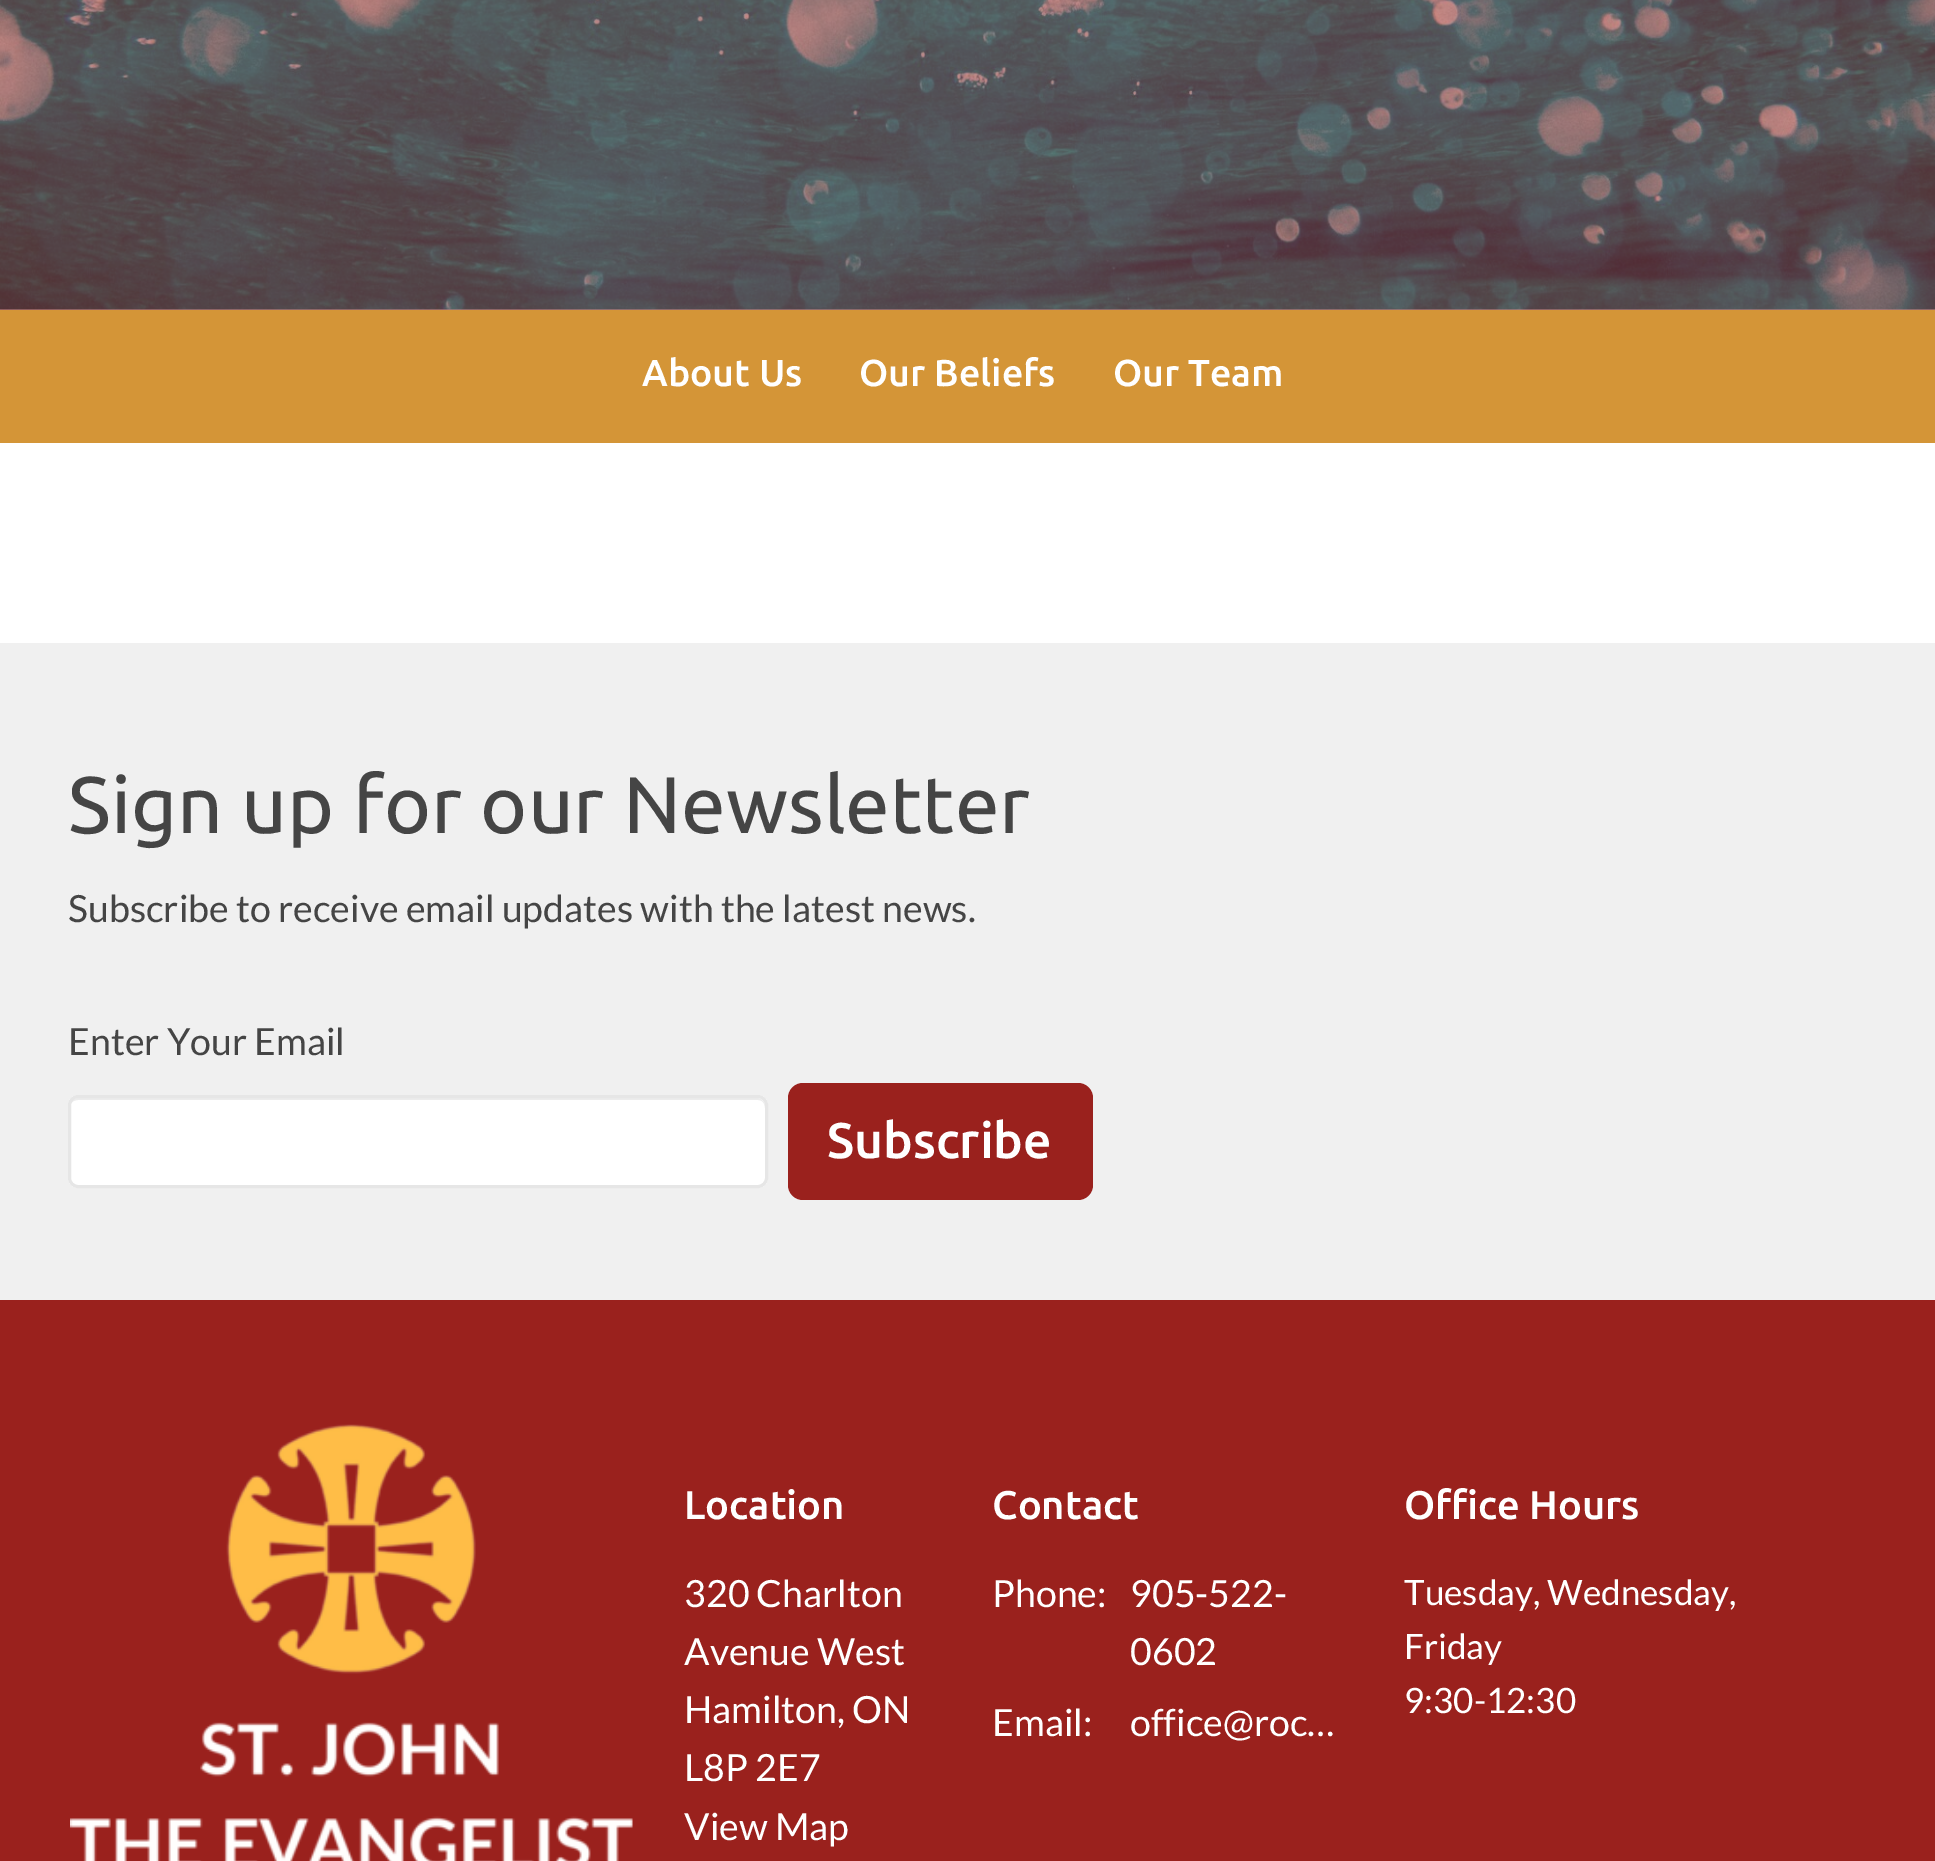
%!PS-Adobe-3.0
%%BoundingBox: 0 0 1935 1861
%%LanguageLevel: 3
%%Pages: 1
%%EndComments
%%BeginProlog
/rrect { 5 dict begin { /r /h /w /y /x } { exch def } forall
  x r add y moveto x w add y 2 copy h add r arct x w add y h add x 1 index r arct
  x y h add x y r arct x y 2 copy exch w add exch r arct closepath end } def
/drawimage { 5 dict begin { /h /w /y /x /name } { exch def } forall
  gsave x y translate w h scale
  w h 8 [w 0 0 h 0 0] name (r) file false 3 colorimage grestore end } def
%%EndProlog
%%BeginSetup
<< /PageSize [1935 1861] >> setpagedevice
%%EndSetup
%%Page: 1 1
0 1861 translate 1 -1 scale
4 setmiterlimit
1 setgray
0 0 1935 1861 rectfill
0.788 0.537 0.529 setrgbcolor
0 309 1935 1 rectfill
(images/1.raw) 0 0 1935 310 drawimage
0.831 0.584 0.216 setrgbcolor
0 310 1935 133 rectfill
0.941 setgray
0 643 1935 657 rectfill
1 setgray
68 1095 700 93 10 rrect fill
0.925 setgray
newpath 78 1100 moveto 758 1100 lineto 762 1100 765 1103 765 1108 curveto 765 1106 lineto 765 1102 761 1098 757 1098 curveto 78 1098 lineto 74 1098 70 1102 70 1106 curveto 70 1108 lineto 70 1103 73 1100 78 1100 curveto closepath fill
0.902 setgray
3 setlinewidth
69.5 1096.5 697 90 8.5 rrect stroke
0.604 0.129 0.114 setrgbcolor
788 1083 305 117 15 rrect fill
0 1300 1935 561 rectfill
(images/2.raw) 70 1424 563 437 drawimage
/Ubuntu-Medium [37.5 0 0 -37.5 0 0] selectfont
1 setgray
642 386 moveto (About Us) show
859 386 moveto (Our Beliefs) show
1113 386 moveto (Our Team) show
/Ubuntu-Regular [80 0 0 -80 0 0] selectfont
0.271 setgray
68 833 moveto (Sign up for our Newsletter) show
/Lato-Regular [37.5 0 0 -37.5 0 0] selectfont
68 922 moveto (Subscribe to receive email updates with the latest news.) show
68 1055 moveto (Enter Your Email) show
/Ubuntu-Medium [50 0 0 -50 0 0] selectfont
1 setgray
827 1158 moveto (Subscribe) show
/Ubuntu-Medium [40 0 0 -40 0 0] selectfont
684 1519 moveto (Location) show
/Lato-Regular [37.5 0 0 -37.5 0 0] selectfont
684 1607 moveto (320 Charlton) show
684 1665 moveto (Avenue West) show
684 1723 moveto (Hamilton, ON) show
684 1781 moveto (L8P 2E7) show
684 1840 moveto (View Map) show
/Ubuntu-Medium [40 0 0 -40 0 0] selectfont
992 1519 moveto (Contact) show
/Lato-Regular [37.5 0 0 -37.5 0 0] selectfont
992 1607 moveto (Phone:) show
1130 1607 moveto (905-522-) show
1130 1665 moveto (0602) show
992 1736 moveto (Email:) show
1130 1736 moveto (office@roc…) show
/Ubuntu-Medium [40 0 0 -40 0 0] selectfont
1404 1519 moveto (Office Hours) show
/Lato-Regular [35 0 0 -35 0 0] selectfont
1404 1605 moveto (Tuesday, Wednesday,) show
1404 1659 moveto (Friday) show
1404 1713 moveto (9:30-12:30) show
showpage
%%EOF
